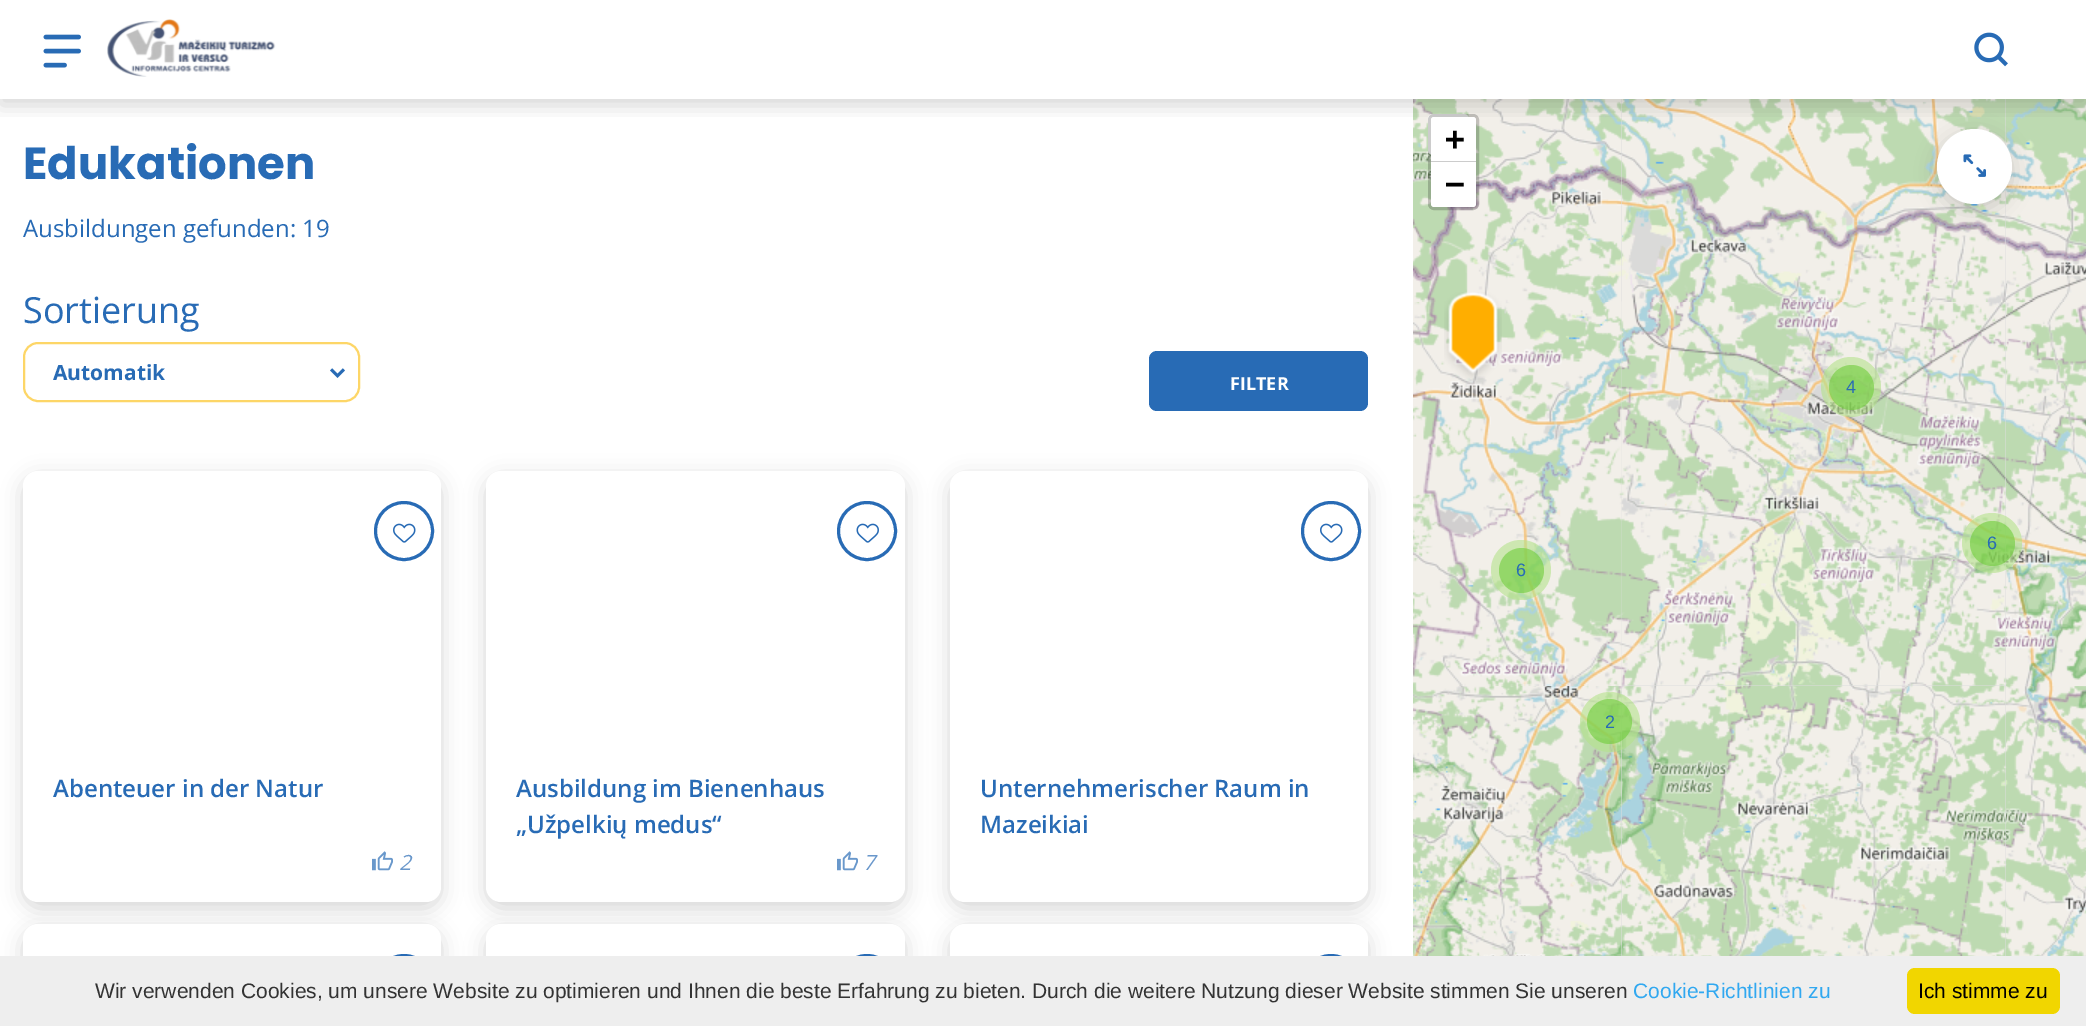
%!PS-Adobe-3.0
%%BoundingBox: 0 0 2086 1026
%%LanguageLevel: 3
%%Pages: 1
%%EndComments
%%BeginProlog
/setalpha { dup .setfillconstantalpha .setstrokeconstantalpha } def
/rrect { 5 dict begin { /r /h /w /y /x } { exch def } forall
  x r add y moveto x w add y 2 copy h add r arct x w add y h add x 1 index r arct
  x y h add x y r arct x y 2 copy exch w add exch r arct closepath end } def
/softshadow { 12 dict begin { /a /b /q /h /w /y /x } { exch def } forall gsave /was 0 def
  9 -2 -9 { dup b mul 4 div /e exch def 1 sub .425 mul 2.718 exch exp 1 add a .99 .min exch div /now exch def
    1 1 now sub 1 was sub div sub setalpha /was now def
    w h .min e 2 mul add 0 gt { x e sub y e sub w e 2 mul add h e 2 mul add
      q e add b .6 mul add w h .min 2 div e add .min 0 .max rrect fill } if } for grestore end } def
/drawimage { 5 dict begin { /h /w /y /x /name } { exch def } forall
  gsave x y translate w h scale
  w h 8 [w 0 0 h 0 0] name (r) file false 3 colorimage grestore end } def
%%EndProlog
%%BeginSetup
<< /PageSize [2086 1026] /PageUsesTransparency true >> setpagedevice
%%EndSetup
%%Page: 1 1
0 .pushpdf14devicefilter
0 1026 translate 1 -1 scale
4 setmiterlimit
1 setgray
0 0 2086 1026 rectfill
0.867 setgray
1621 99 385 857 rectfill
(images/13.raw) 1621 301 385 385 drawimage
(images/10.raw) 1622 99 384 203 drawimage
(images/11.raw) 2006 99 80 203 drawimage
0 setgray
1937 135 75 75 37.5 10.5 0.16 softshadow
1 setgray
newpath 1974.5 166.5 37.5 0 360 arc closepath fill
(images/9.raw) 1413 99 209 203 drawimage
1428 114 41 41 5 rrect fill
0.2 setalpha
0 setgray
3 setlinewidth
1429.5 115.5 48 93 4.5 rrect stroke
1 setalpha
1 setgray
newpath 1434 117 moveto 1473 117 lineto 1474.5 117 1476 118.5 1476 120 curveto 1476 162 lineto 1431 162 lineto 1431 120 lineto 1431 118.5 1432.5 117 1434 117 curveto closepath fill
gsave
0 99 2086 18 rectclip
0 setgray
0 6 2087 99 0 10.5 0.16 softshadow
grestore
(images/1.raw) 43 34 38 34 drawimage
(images/2.raw) 107 19 169 58 drawimage
(images/3.raw) 1974 32 34 35 drawimage
0.992 0.839 0.404 setrgbcolor
2 setlinewidth
24 343 335 58 14 rrect stroke
(images/4.raw) 330 368 15 10 drawimage
0.157 0.42 0.71 setrgbcolor
1149 351 219 60 8 rrect fill
0 setgray
23 477 418 431 15 10.5 0.16 softshadow
1 setgray
23 471 418 431 15 rrect fill
0.157 0.42 0.71 setrgbcolor
3 setlinewidth
newpath 404 531 28.5 0 360 arc closepath stroke
(images/5.raw) 393 523 23 20 drawimage
(images/6.raw) 372 851 21 20 drawimage
0 setgray
486 477 419 431 15 10.5 0.16 softshadow
1 setgray
486 471 419 431 15 rrect fill
0.157 0.42 0.71 setrgbcolor
newpath 867 531 28.5 0 360 arc closepath stroke
(images/7.raw) 856 523 23 20 drawimage
(images/6.raw) 837 851 21 20 drawimage
0 setgray
950 477 418 431 15 10.5 0.16 softshadow
1 setgray
950 471 418 431 15 rrect fill
0.157 0.42 0.71 setrgbcolor
newpath 1331 531 28.5 0 360 arc closepath stroke
(images/5.raw) 1320 523 23 20 drawimage
0 setgray
23 930 418 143 15 10.5 0.16 softshadow
1 setgray
23 924 418 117 15 rrect fill
0.157 0.42 0.71 setrgbcolor
newpath 404 984 28.5 0 360 arc closepath stroke
0 setgray
486 930 419 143 15 10.5 0.16 softshadow
1 setgray
486 924 419 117 15 rrect fill
0.157 0.42 0.71 setrgbcolor
newpath 867 984 28.5 0 360 arc closepath stroke
0 setgray
950 930 418 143 15 10.5 0.16 softshadow
1 setgray
950 924 418 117 15 rrect fill
0.157 0.42 0.71 setrgbcolor
newpath 1331 984 28.5 0 360 arc closepath stroke
(images/8.raw) 1963 154 23 23 drawimage
0.8 setgray
1431 161 45 1 rectfill
1 setgray
newpath 1431 162 moveto 1476 162 lineto 1476 204 lineto 1476 205.5 1474.5 207 1473 207 curveto 1434 207 lineto 1432.5 207 1431 205.5 1431 204 curveto closepath fill
(images/12.raw) 1413 302 209 384 drawimage
(images/14.raw) 2006 302 80 384 drawimage
(images/15.raw) 1413 686 209 270 drawimage
(images/16.raw) 1622 686 384 270 drawimage
(images/17.raw) 2006 686 80 270 drawimage
(images/18.raw) 1444 292 58 88 drawimage
0.6 setalpha
0.71 0.886 0.549 setrgbcolor
newpath 1851 387 30 0 360 arc closepath fill
0.431 0.8 0.224 setrgbcolor
newpath 1851.5 387.5 22.5 0 360 arc closepath fill
0.71 0.886 0.549 setrgbcolor
newpath 1992 543 30 0 360 arc closepath fill
0.431 0.8 0.224 setrgbcolor
newpath 1992.5 543.5 22.5 0 360 arc closepath fill
0.71 0.886 0.549 setrgbcolor
newpath 1521 570 30 0 360 arc closepath fill
0.431 0.8 0.224 setrgbcolor
newpath 1521.5 570.5 22.5 0 360 arc closepath fill
0.71 0.886 0.549 setrgbcolor
newpath 1610 722 30 0 360 arc closepath fill
0.431 0.8 0.224 setrgbcolor
newpath 1609.5 721.5 22.5 0 360 arc closepath fill
1 setalpha
0.933 setgray
0 956 2086 70 rectfill
0.945 0.839 0 setrgbcolor
1907 968 153 46 8 rrect fill
/Poppins-Bold [45 0 0 -45 0 0] selectfont
0.157 0.42 0.71 setrgbcolor
23 179 moveto (Edukationen) show
/OpenSans-Regular [24 0 0 -24 0 0] selectfont
23 237 moveto (Ausbildungen gefunden: 19) show
/OpenSans-Regular [36 0 0 -36 0 0] selectfont
23 323 moveto (Sortierung) show
/OpenSans-Bold [21 0 0 -21 0 0] selectfont
53 380 moveto (Automatik) show
/OpenSans-Bold [18 0 0 -18 0 0] selectfont
1 setgray
1230 390 moveto (FILTER) show
/OpenSans-SemiBold [24 0 0 -24 0 0] selectfont
0.157 0.42 0.71 setrgbcolor
53 797 moveto (Abenteuer in der Natur) show
/OpenSans-Italic [21 0 0 -21 0 0] selectfont
0.412 0.592 0.796 setrgbcolor
399 870 moveto (2) show
/OpenSans-SemiBold [24 0 0 -24 0 0] selectfont
0.157 0.42 0.71 setrgbcolor
516 797 moveto (Ausbildung im Bienenhaus) show
516 833 moveto („Užpelkių medus“) show
/OpenSans-Italic [21 0 0 -21 0 0] selectfont
0.412 0.592 0.796 setrgbcolor
863 870 moveto (7) show
/OpenSans-SemiBold [24 0 0 -24 0 0] selectfont
0.157 0.42 0.71 setrgbcolor
980 797 moveto (Unternehmerischer Raum in) show
980 833 moveto (Mazeikiai) show
/DejaVuSansMono-Bold [33 0 0 -33 0 0] selectfont
0 setgray
1445 150 moveto (+) show
1445 195 moveto (−) show
/LiberationSans-Regular [18 0 0 -18 0 0] selectfont
0.157 0.42 0.71 setrgbcolor
1846 393 moveto (4) show
1987 549 moveto (6) show
1516 576 moveto (6) show
1605 728 moveto (2) show
/LiberationSans-Regular [21 0 0 -21 0 0] selectfont
0.2 setgray
95 998 moveto (Wir verwenden Cookies, um unsere Website zu optimieren und Ihnen die beste Erfahrung zu bieten. Durch die weitere Nutzung dieser Website stimmen Sie unseren) show
0.192 0.659 0.941 setrgbcolor
1633 998 moveto (Cookie-Richtlinien zu) show
0 setgray
1918 998 moveto (Ich stimme zu) show
.poppdf14devicefilter showpage
%%EOF
